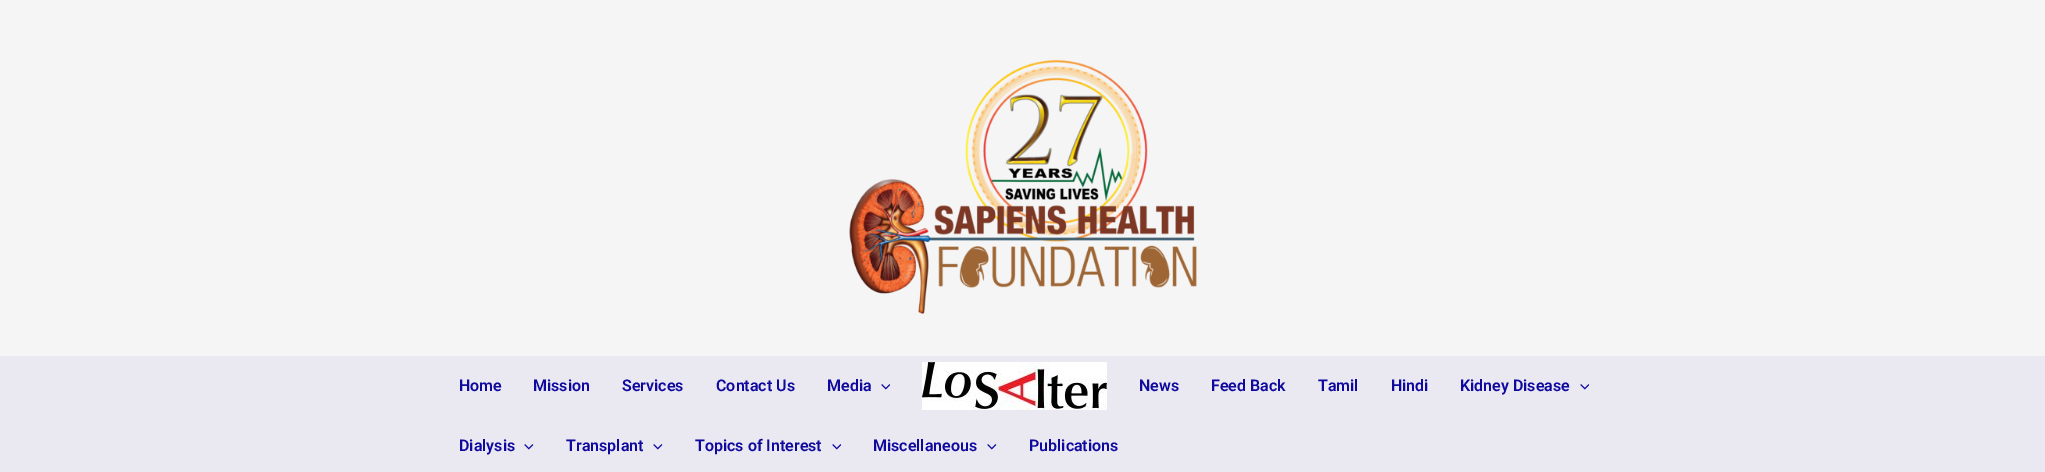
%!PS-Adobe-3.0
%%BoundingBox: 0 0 2045 472
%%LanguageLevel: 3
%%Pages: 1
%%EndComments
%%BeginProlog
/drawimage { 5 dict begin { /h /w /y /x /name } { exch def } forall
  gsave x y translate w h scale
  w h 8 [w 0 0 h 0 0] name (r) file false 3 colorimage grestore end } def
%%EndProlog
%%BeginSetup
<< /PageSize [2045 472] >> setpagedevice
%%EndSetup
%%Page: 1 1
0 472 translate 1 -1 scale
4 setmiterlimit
0.961 setgray
0 0 2045 472 rectfill
(images/1.raw) 849 59 348 255 drawimage
0.918 0.914 0.949 setrgbcolor
0 356 2045 116 rectfill
(images/2.raw) 881 384 9 6 drawimage
(images/3.raw) 922 362 185 48 drawimage
(images/2.raw) 1580 384 9 6 drawimage
(images/4.raw) 524 444 10 6 drawimage
(images/4.raw) 653 444 10 6 drawimage
(images/2.raw) 832 444 9 6 drawimage
(images/4.raw) 987 444 10 6 drawimage
/Roboto-SemiBold [16 0 0 -16 0 0] selectfont
0.063 0.035 0.62 setrgbcolor
459 391 moveto (Home) show
533 391 moveto (Mission) show
622 391 moveto (Services) show
716 391 moveto (Contact Us) show
827 391 moveto (Media) show
1139 391 moveto (News) show
1211 391 moveto (Feed Back) show
1318 391 moveto (Tamil) show
1391 391 moveto (Hindi) show
1460 391 moveto (Kidney Disease) show
459 451 moveto (Dialysis) show
566 451 moveto (Transplant) show
695 451 moveto (Topics of Interest) show
873 451 moveto (Miscellaneous) show
1029 451 moveto (Publications) show
showpage
%%EOF
